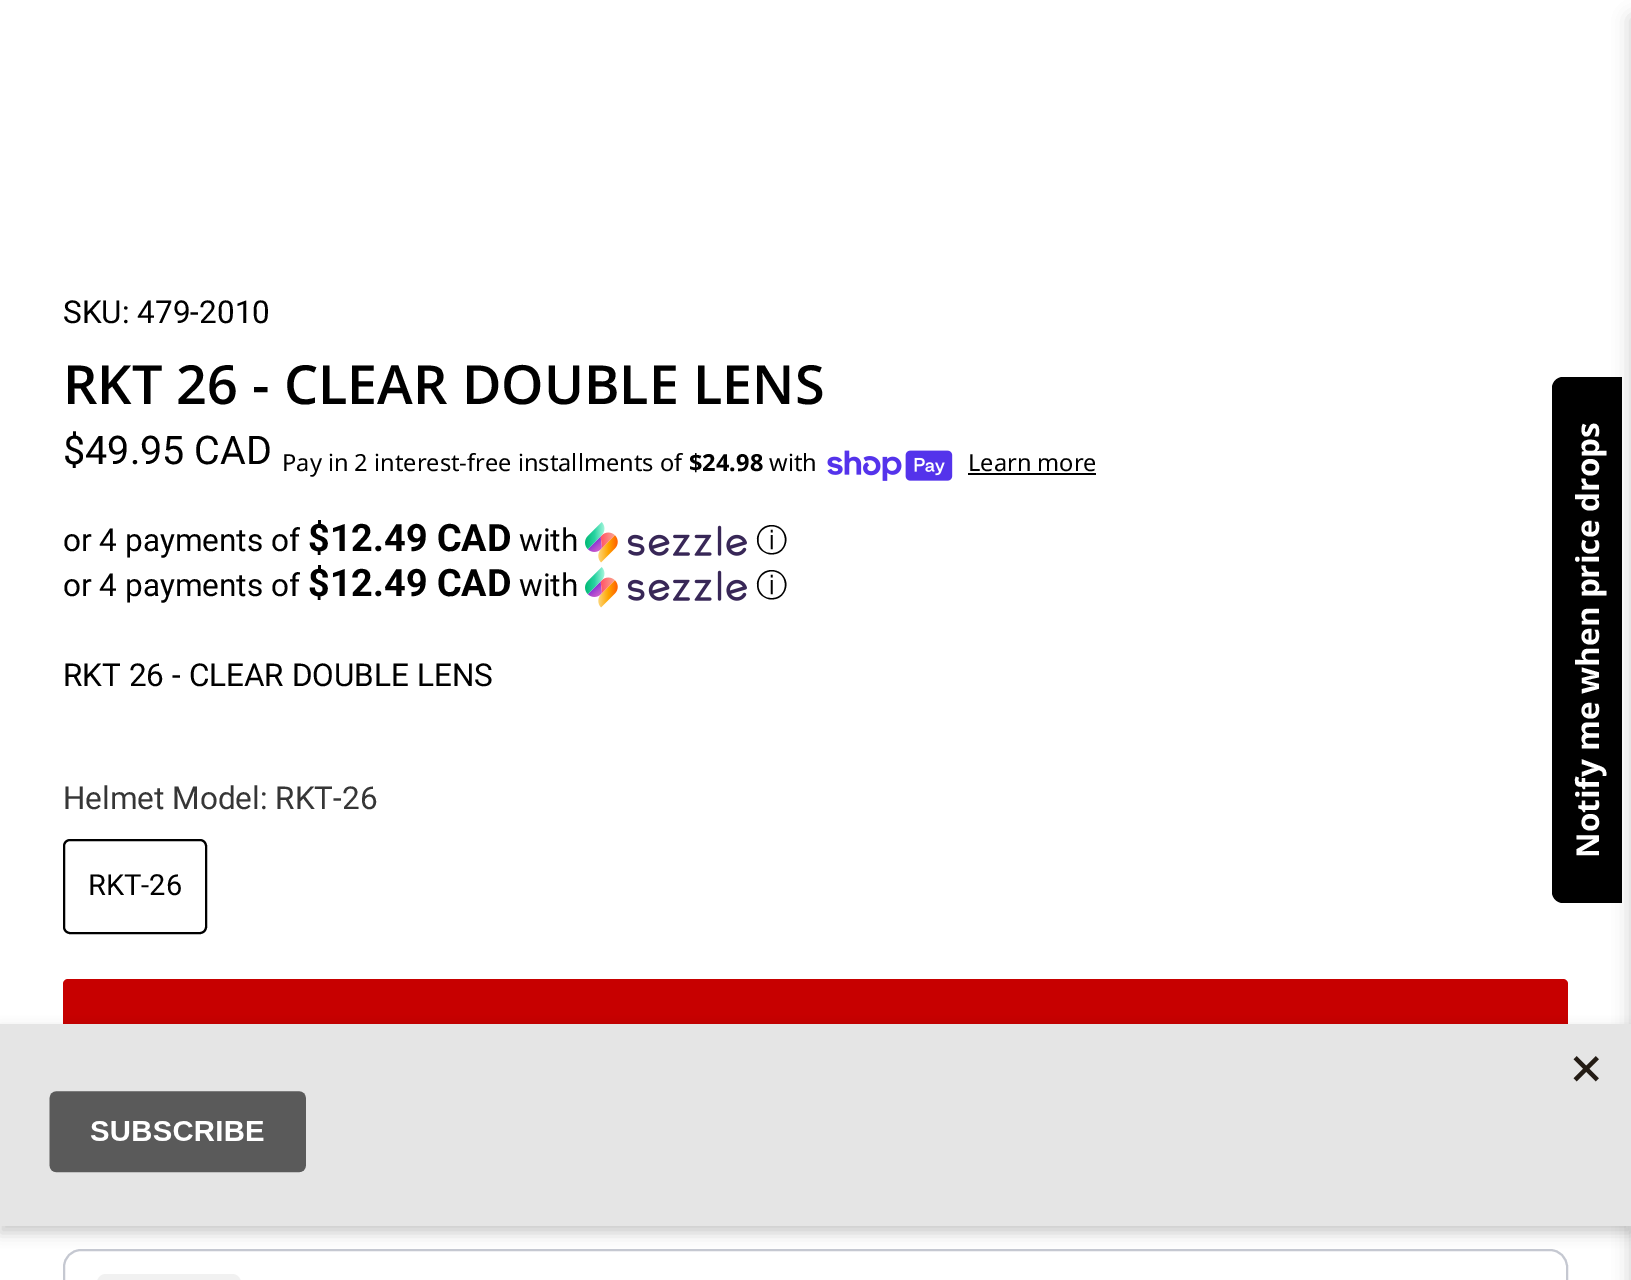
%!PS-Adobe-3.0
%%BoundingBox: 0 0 1631 1280
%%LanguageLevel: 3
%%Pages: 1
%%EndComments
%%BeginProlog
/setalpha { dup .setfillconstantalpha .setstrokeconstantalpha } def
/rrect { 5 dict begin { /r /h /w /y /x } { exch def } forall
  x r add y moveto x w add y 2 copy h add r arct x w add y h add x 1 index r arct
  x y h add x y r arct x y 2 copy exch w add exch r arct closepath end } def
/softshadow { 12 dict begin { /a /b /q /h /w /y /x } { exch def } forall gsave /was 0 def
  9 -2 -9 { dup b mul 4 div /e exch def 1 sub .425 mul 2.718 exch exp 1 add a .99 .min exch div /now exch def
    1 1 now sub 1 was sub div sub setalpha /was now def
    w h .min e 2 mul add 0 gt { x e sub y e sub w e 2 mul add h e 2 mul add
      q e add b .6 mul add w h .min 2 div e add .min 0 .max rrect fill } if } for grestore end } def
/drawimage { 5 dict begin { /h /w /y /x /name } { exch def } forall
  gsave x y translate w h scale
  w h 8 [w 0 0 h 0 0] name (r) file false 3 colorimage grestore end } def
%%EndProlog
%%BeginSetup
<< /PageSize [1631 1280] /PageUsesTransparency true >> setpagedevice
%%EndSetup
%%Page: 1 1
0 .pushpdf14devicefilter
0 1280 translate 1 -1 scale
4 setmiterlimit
1 setgray
0 0 1631 1280 rectfill
0.039 setgray
1631 18 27 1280 0 9 0.1 softshadow
(images/1.raw) 827 450 126 31 drawimage
0 setgray
968 473 128 2 rectfill
(images/2.raw) 585 522 162 41 drawimage
(images/2.raw) 585 567 162 41 drawimage
2 setlinewidth
64 840 142 93 6 rrect stroke
0.78 0 0 setrgbcolor
63 979 1505 99 5 rrect fill
0.773 0.784 0.82 setrgbcolor
64 1250 1503 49 17 rrect stroke
0.945 setgray
97 1274 144 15 9 rrect fill
0.039 setgray
1631 18 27 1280 0 9 0.1 softshadow
0 setgray
newpath 1552 892 moveto 1552 388 lineto 1552 382 1557 377 1563 377 curveto 1622 377 lineto 1622 903 lineto 1563 903 lineto 1557 903 1552 898 1552 892 curveto closepath fill
0 1031 1631 202 0 7 0.2 softshadow
0.898 setgray
0 1024 1631 202 rectfill
(images/3.raw) 49 1056 1550 117 drawimage
/Roboto-Regular [31.5 0 0 -31.5 0 0] selectfont
0 setgray
63 323 moveto (SKU: 479-2010) show
/OpenSans-SemiBold [54 0 0 -54 0 0] selectfont
63 404 moveto (RKT 26 - CLEAR DOUBLE LENS) show
/Roboto-Regular [39.5 0 0 -39.5 0 0] selectfont
63 464 moveto ($49.95 CAD) show
/NotoSans-Regular [23.6 0 0 -23.6 0 0] selectfont
282 471 moveto (Pay in 2 interest-free installments of) show
/NotoSans-Bold [23.6 0 0 -23.6 0 0] selectfont
689 471 moveto ($24.98) show
/NotoSans-Regular [23.6 0 0 -23.6 0 0] selectfont
769 471 moveto (with) show
968 471 moveto (Learn more) show
/Roboto-Regular [31.5 0 0 -31.5 0 0] selectfont
63 551 moveto (or 4 payments of) show
/Roboto-Bold [37.75 0 0 -37.75 0 0] selectfont
308 551 moveto ($12.49 CAD) show
/Roboto-Regular [31.5 0 0 -31.5 0 0] selectfont
519 551 moveto (with) show
/WenQuanYiZenHei-Medium [31.5 0 0 -31.5 0 0] selectfont
756 551 moveto (ⓘ) show
/Roboto-Regular [31.5 0 0 -31.5 0 0] selectfont
63 596 moveto (or 4 payments of) show
/Roboto-Bold [37.75 0 0 -37.75 0 0] selectfont
308 596 moveto ($12.49 CAD) show
/Roboto-Regular [31.5 0 0 -31.5 0 0] selectfont
519 596 moveto (with) show
/WenQuanYiZenHei-Medium [31.5 0 0 -31.5 0 0] selectfont
756 596 moveto (ⓘ) show
/Roboto-Regular [31.5 0 0 -31.5 0 0] selectfont
63 686 moveto (RKT 26 - CLEAR DOUBLE LENS) show
0.212 setgray
63 809 moveto (Helmet Model: RKT-26) show
/Roboto-Regular [29 0 0 -29 0 0] selectfont
0 setgray
88 895 moveto (RKT-26) show
/OpenSans-Bold [31.5 0 0 -31.5 0 0] selectfont
1 setgray
gsave 1599 858 translate -90 rotate 0 0 moveto (Notify me when price drops) show grestore
.poppdf14devicefilter showpage
%%EOF
